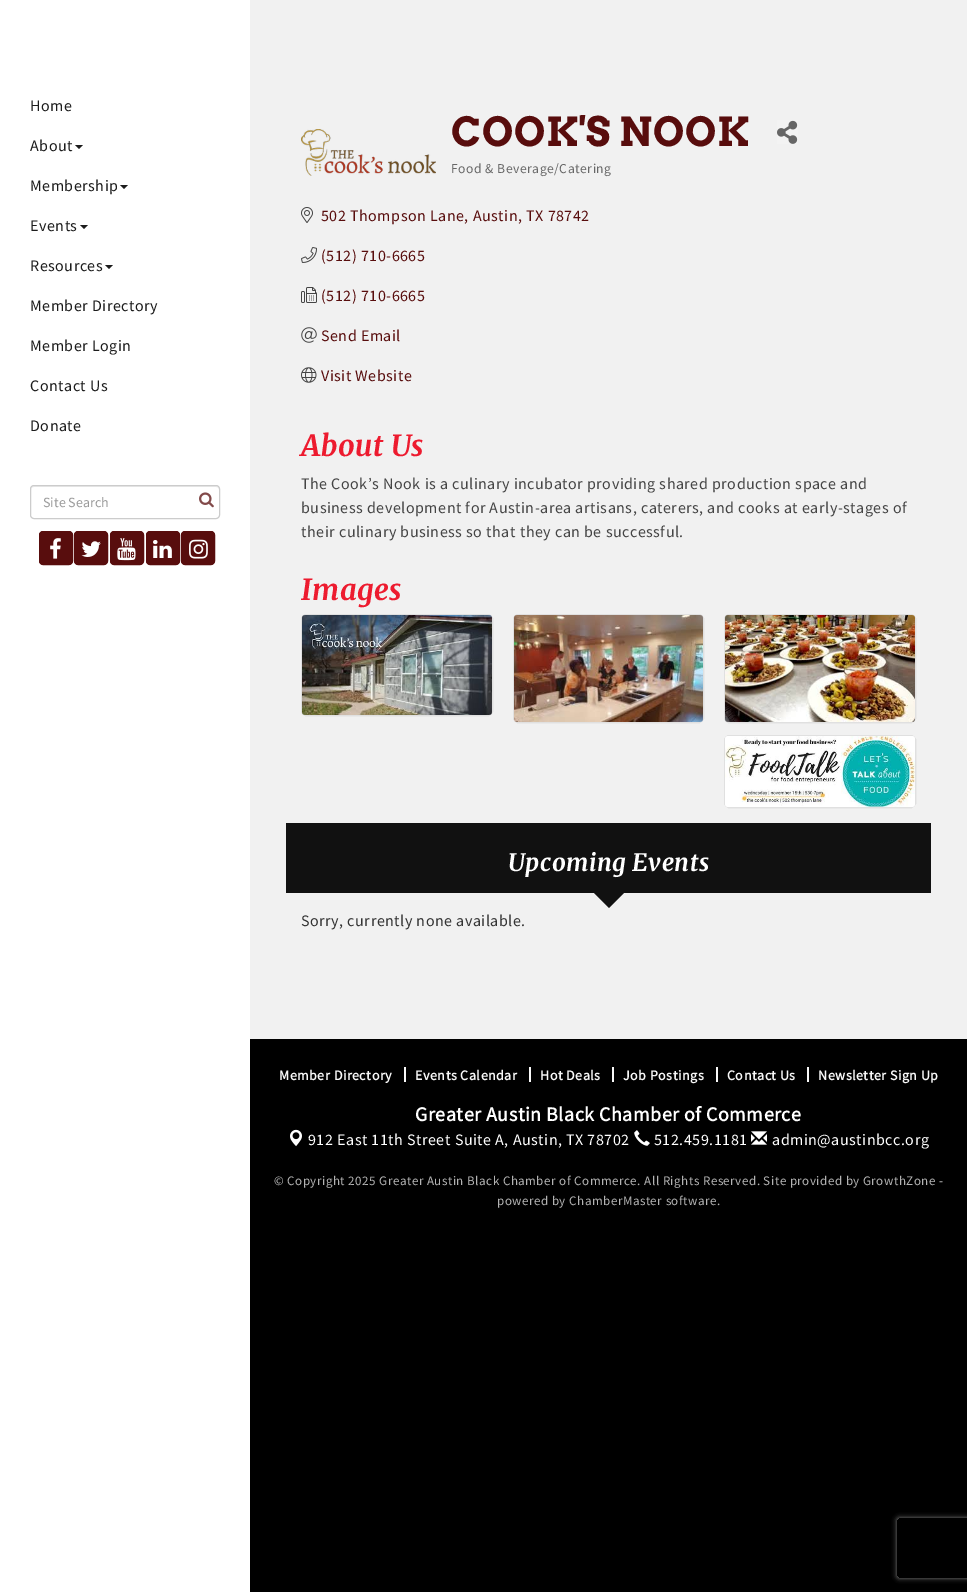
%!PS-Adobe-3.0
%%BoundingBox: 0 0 967 1592
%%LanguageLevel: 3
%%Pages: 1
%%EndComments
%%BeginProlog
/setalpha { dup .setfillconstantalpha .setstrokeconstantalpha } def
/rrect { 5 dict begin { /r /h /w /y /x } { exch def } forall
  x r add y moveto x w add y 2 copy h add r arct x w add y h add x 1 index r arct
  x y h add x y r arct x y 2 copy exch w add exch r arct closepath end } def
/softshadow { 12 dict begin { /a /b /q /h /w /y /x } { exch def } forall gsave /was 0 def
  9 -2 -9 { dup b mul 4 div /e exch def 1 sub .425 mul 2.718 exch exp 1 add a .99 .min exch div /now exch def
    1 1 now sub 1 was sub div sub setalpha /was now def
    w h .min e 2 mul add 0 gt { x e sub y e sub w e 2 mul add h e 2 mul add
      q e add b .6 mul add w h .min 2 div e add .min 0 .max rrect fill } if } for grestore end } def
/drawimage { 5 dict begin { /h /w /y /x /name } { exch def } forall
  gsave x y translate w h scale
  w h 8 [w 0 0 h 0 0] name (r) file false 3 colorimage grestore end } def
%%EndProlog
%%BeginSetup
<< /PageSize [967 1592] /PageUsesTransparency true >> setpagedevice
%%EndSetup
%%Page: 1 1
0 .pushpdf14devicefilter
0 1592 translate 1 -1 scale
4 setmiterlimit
0 setgray
0 0 967 1592 rectfill
1 setgray
0 0 250 1592 rectfill
0.11 setgray
newpath 75 145 moveto 83 145 lineto 79 149 lineto closepath fill
newpath 120 185 moveto 128 185 lineto 124 189 lineto closepath fill
newpath 80 225 moveto 88 225 lineto 84 229 lineto closepath fill
newpath 105 265 moveto 113 265 lineto 109 269 lineto closepath fill
0.925 setgray
newpath 34 487 moveto 216 487 lineto 218 487 219 488 219 490 curveto 219 488 218 486 216 486 curveto 34 486 lineto 32 486 31 488 31 490 curveto 31 488 32 487 34 487 curveto closepath fill
0.8 setgray
30.5 485.5 189 33 3.5 rrect stroke
(images/1.raw) 199 492 15 16 drawimage
0.345 0.051 0.051 setrgbcolor
39.5 531.5 33 33 3.5 rrect gsave fill grestore
stroke
(images/2.raw) 50 538 11 21 drawimage
74.5 531.5 33 33 3.5 rrect gsave fill grestore
stroke
(images/3.raw) 81 541 20 16 drawimage
110.5 531.5 33 33 3.5 rrect gsave fill grestore
stroke
(images/4.raw) 117 538 19 23 drawimage
146.5 531.5 33 33 3.5 rrect gsave fill grestore
stroke
(images/5.raw) 153 540 19 18 drawimage
181.5 531.5 33 33 3.5 rrect gsave fill grestore
stroke
(images/6.raw) 189 539 19 20 drawimage
0.945 setgray
250 0 717 1039 rectfill
(images/7.raw) 301 129 135 47 drawimage
(images/8.raw) 777 120 21 24 drawimage
(images/9.raw) 301 207 12 16 drawimage
(images/10.raw) 301 247 16 16 drawimage
(images/11.raw) 301 287 16 16 drawimage
(images/12.raw) 301 327 16 16 drawimage
(images/13.raw) 301 367 16 16 drawimage
1 setgray
301 614 192 102 5 rrect fill
0.12 setalpha
0 setgray
301.5 614.5 191 101 4.5 rrect stroke
1 setalpha
(images/14.raw) 302 615 190 100 drawimage
1 setgray
513 614 191 109 5 rrect fill
0.12 setalpha
0 setgray
513.5 614.5 190 108 4.5 rrect stroke
1 setalpha
(images/15.raw) 514 615 189 107 drawimage
1 setgray
724 614 192 109 5 rrect fill
0.12 setalpha
0 setgray
724.5 614.5 191 108 4.5 rrect stroke
1 setalpha
(images/16.raw) 725 615 190 107 drawimage
1 setgray
724 735 192 73 5 rrect fill
0.12 setalpha
0 setgray
724.5 735.5 191 72 4.5 rrect stroke
1 setalpha
(images/17.raw) 725 736 190 71 drawimage
0.067 setgray
286 823 645 70 rectfill
newpath 589 888 moveto 629 888 lineto 609 908 lineto closepath fill
0.973 setgray
404 1067 2 15 rectfill
529 1067 2 15 rectfill
612 1067 2 15 rectfill
716 1067 2 15 rectfill
807 1067 2 15 rectfill
(images/18.raw) 290 1129 12 18 drawimage
(images/19.raw) 634 1130 16 16 drawimage
(images/20.raw) 751 1131 16 14 drawimage
gsave
newpath 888 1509 moveto 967 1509 lineto 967 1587 lineto 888 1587 lineto closepath 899 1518 moveto 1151 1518 lineto 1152 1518 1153 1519 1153 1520 curveto 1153 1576 lineto 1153 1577 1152 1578 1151 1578 curveto 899 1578 lineto 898 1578 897 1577 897 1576 curveto 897 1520 lineto 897 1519 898 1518 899 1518 curveto closepath eoclip newpath
0.502 setgray
897 1518 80 60 2 2.5 1 softshadow
grestore
/SourceSansPro-Regular [16 0 0 -16 0 0] selectfont
0.11 setgray
30 111 moveto 0.5 0 (Home) ashow
30 151 moveto 0.5 0 (About) ashow
30 191 moveto 0.5 0 (Membership) ashow
30 231 moveto 0.5 0 (Events) ashow
30 271 moveto 0.5 0 (Resources) ashow
30 311 moveto 0.5 0 (Member Directory) ashow
30 351 moveto 0.5 0 (Member Login) ashow
30 391 moveto 0.5 0 (Contact Us) ashow
30 431 moveto 0.5 0 (Donate) ashow
/SourceSansPro-Regular [14 0 0 -14 0 0] selectfont
0.6 setgray
43 507 moveto (Site Search) show
/Arvo-Bold [40 0 0 -40 0 0] selectfont
0.345 0.051 0.051 setrgbcolor
451 146 moveto 0.5 0 (COOK'S NOOK) ashow
/SourceSansPro-Regular [13.6 0 0 -13.6 0 0] selectfont
0.404 setgray
451 173 moveto 0.5 0 (Food & Beverage/Catering) ashow
/SourceSansPro-Regular [16 0 0 -16 0 0] selectfont
0.345 0.051 0.051 setrgbcolor
321 221 moveto 0.5 0 (502 Thompson Lane, Austin, TX 78742) ashow
321 261 moveto 0.5 0 (\(512\) 710-6665) ashow
321 301 moveto 0.5 0 (\(512\) 710-6665) ashow
321 341 moveto 0.5 0 (Send Email) ashow
321 381 moveto 0.5 0 (Visit Website) ashow
/Merriweather-LightItalic [29 0 0 -29 0 0] selectfont
0.929 0.106 0.184 setrgbcolor
301 456 moveto 0.5 0 (About Us) ashow
/SourceSansPro-Regular [16 0 0 -16 0 0] selectfont
0.267 setgray
301 489 moveto 0.5 0 (The Cook’s Nook is a culinary incubator providing shared production space and) ashow
301 513 moveto 0.5 0 (business development for Austin-area artisans, caterers, and cooks at early-stages of) ashow
301 537 moveto 0.5 0 (their culinary business so that they can be successful.) ashow
/Merriweather-LightItalic [29 0 0 -29 0 0] selectfont
0.929 0.106 0.184 setrgbcolor
301 600 moveto 0.5 0 (Images) ashow
/Merriweather-LightItalic [24 0 0 -24 0 0] selectfont
1 setgray
508 871 moveto 0.5 0 (Upcoming Events) ashow
/SourceSansPro-Regular [16 0 0 -16 0 0] selectfont
0.2 setgray
301 926 moveto 0.5 0 (Sorry, currently none available.) ashow
/SourceSansPro-Bold [14 0 0 -14 0 0] selectfont
0.973 setgray
279 1080 moveto 0.5 0 (Member Directory) ashow
415 1080 moveto 0.5 0 (Events Calendar) ashow
540 1080 moveto 0.5 0 (Hot Deals) ashow
623 1080 moveto 0.5 0 (Job Postings) ashow
727 1080 moveto 0.5 0 (Contact Us) ashow
818 1080 moveto 0.5 0 (Newsletter Sign Up) ashow
/SourceSansPro-Bold [20 0 0 -20 0 0] selectfont
1 setgray
415 1121 moveto 0.5 0 (Greater Austin Black Chamber of Commerce) ashow
/SourceSansPro-Regular [16 0 0 -16 0 0] selectfont
308 1145 moveto 0.5 0 (912 East 11th Street Suite A, Austin, TX 78702) ashow
654 1145 moveto 0.5 0 (512.459.1181) ashow
772 1145 moveto 0.5 0 (admin@austinbcc.org) ashow
/SourceSansPro-Regular [13 0 0 -13 0 0] selectfont
0.702 setgray
274 1185 moveto 0.5 0 (© Copyright 2025 Greater Austin Black Chamber of Commerce. All Rights Reserved. Site provided by GrowthZone -) ashow
497 1205 moveto 0.5 0 (powered by ChamberMaster software.) ashow
.poppdf14devicefilter showpage
%%EOF
